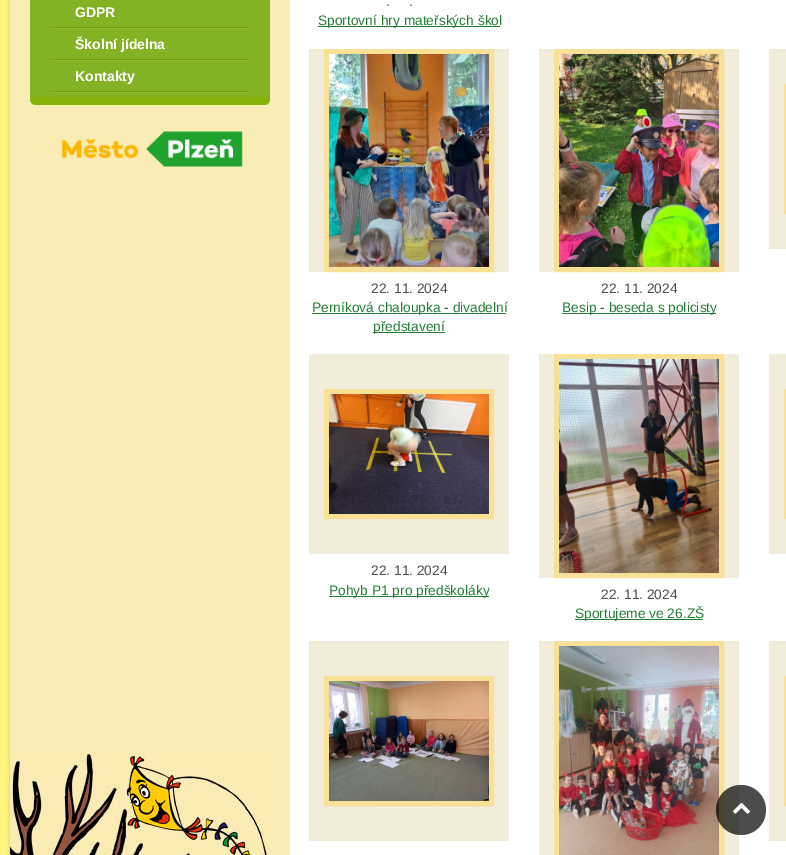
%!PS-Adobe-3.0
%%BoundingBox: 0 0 786 855
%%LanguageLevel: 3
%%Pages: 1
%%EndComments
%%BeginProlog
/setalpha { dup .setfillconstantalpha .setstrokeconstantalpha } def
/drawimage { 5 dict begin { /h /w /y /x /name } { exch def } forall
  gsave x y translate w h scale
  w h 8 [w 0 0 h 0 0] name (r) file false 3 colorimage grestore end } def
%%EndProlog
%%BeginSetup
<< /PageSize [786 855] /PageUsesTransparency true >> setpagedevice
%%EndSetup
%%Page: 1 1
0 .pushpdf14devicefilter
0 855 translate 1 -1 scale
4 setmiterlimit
1 0.957 0.498 setrgbcolor
0 0 786 855 rectfill
(images/1.raw) 7 0 283 855 drawimage
(images/2.raw) 10 753 264 102 drawimage
0.514 0.702 0.141 setrgbcolor
30 0 240 97 rectfill
(images/3.raw) 30 97 240 8 drawimage
(images/4.raw) 50 27 200 2 drawimage
(images/4.raw) 50 59 200 2 drawimage
(images/4.raw) 50 91 200 2 drawimage
(images/5.raw) 61 131 182 36 drawimage
1 setgray
290 0 496 855 rectfill
0.145 0.486 0.212 setrgbcolor
318 26 182 1 rectfill
0.949 0.925 0.855 setrgbcolor
769 49 17 200 rectfill
0.969 0.882 0.588 setrgbcolor
5 setlinewidth
786.5 86.5 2 125 rectstroke
0.949 0.925 0.855 setrgbcolor
309 49 200 223 rectfill
0.969 0.882 0.588 setrgbcolor
326.5 51.5 165 218 rectstroke
(images/6.raw) 329 54 160 213 drawimage
0.145 0.486 0.212 setrgbcolor
312 313 194 1 rectfill
373 332 72 1 rectfill
0.949 0.925 0.855 setrgbcolor
539 49 200 223 rectfill
0.969 0.882 0.588 setrgbcolor
556.5 51.5 165 218 rectstroke
(images/7.raw) 559 54 160 213 drawimage
0.145 0.486 0.212 setrgbcolor
562 313 154 1 rectfill
0.949 0.925 0.855 setrgbcolor
769 354 17 200 rectfill
0.969 0.882 0.588 setrgbcolor
786.5 391.5 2 125 rectstroke
0.949 0.925 0.855 setrgbcolor
309 354 200 200 rectfill
0.969 0.882 0.588 setrgbcolor
326.5 391.5 165 125 rectstroke
(images/8.raw) 329 394 160 120 drawimage
0.145 0.486 0.212 setrgbcolor
329 596 160 1 rectfill
0.949 0.925 0.855 setrgbcolor
539 354 200 224 rectfill
0.969 0.882 0.588 setrgbcolor
556.5 356.5 165 219 rectstroke
(images/9.raw) 559 359 160 214 drawimage
0.145 0.486 0.212 setrgbcolor
575 619 128 1 rectfill
0.949 0.925 0.855 setrgbcolor
309 641 200 200 rectfill
0.969 0.882 0.588 setrgbcolor
326.5 678.5 165 125 rectstroke
(images/10.raw) 329 681 160 120 drawimage
0.949 0.925 0.855 setrgbcolor
539 641 200 214 rectfill
0.969 0.882 0.588 setrgbcolor
556.5 643.5 165 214 rectstroke
(images/11.raw) 559 646 160 209 drawimage
0.949 0.925 0.855 setrgbcolor
769 641 17 200 rectfill
0.969 0.882 0.588 setrgbcolor
786.5 678.5 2 125 rectstroke
0.7 setalpha
0 setgray
newpath 741 810 25 0 360 arc closepath fill
1 setalpha
(images/12.raw) 733 802 17 12 drawimage
/LiberationSans-Bold [14 0 0 -14 0 0] selectfont
1 setgray
75 17 moveto (GDPR) show
75 49 moveto (Školní jídelna) show
75 81 moveto (Kontakty) show
/LiberationSans-Regular [13.75 0 0 -13.75 0 0] selectfont
0.298 setgray
386 6 moveto (.) show
409 6 moveto (.) show
0.145 0.486 0.212 setrgbcolor
318 25 moveto (Sportovní hry mateřských škol) show
0.298 setgray
371 293 moveto (22. 11. 2024) show
0.145 0.486 0.212 setrgbcolor
312 312 moveto (Perníková chaloupka - divadelní) show
373 331 moveto (představení) show
0.298 setgray
601 293 moveto (22. 11. 2024) show
0.145 0.486 0.212 setrgbcolor
562 312 moveto (Besip - beseda s policisty) show
0.298 setgray
371 575 moveto (22. 11. 2024) show
0.145 0.486 0.212 setrgbcolor
329 595 moveto (Pohyb P1 pro předškoláky) show
0.298 setgray
601 599 moveto (22. 11. 2024) show
0.145 0.486 0.212 setrgbcolor
575 618 moveto (Sportujeme ve 26.ZŠ) show
.poppdf14devicefilter showpage
%%EOF
